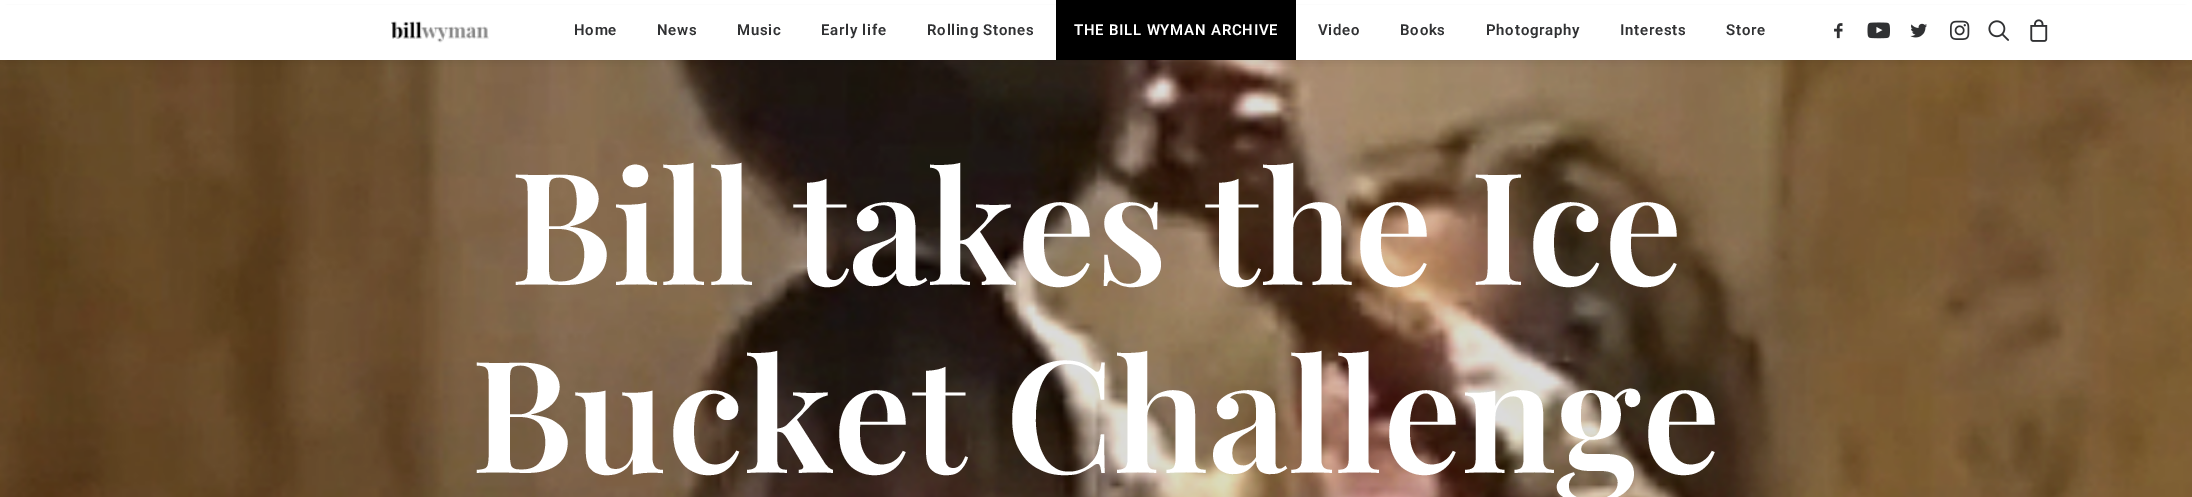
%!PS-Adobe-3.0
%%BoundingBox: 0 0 2192 497
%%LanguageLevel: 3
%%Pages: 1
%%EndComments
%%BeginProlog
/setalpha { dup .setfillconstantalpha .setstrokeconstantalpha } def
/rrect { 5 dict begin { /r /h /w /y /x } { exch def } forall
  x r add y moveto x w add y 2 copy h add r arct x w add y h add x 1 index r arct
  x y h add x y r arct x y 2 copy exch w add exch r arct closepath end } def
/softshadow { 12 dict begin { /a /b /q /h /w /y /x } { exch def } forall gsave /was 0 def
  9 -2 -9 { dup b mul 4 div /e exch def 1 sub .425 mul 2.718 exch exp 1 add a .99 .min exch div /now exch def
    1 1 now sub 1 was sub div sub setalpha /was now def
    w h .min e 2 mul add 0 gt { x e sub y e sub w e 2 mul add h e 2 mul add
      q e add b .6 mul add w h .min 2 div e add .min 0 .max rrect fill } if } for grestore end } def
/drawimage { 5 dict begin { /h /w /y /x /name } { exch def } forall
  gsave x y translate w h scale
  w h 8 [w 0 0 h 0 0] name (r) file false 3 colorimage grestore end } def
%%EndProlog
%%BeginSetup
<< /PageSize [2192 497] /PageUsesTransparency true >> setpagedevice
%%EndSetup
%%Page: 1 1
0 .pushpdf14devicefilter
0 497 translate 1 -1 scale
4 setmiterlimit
1 setgray
0 0 2192 497 rectfill
(images/8.raw) 0 60 2192 437 drawimage
0 setgray
6 18 2180 35 0 6 0.6 softshadow
1 setgray
0 5 2192 55 rectfill
(images/1.raw) 391 21 98 22 drawimage
0 setgray
1056 0 240 60 rectfill
(images/2.raw) 1834 23 9 16 drawimage
(images/3.raw) 1867 22 23 17 drawimage
(images/4.raw) 1910 23 17 15 drawimage
(images/5.raw) 1950 20 20 20 drawimage
(images/6.raw) 1988 20 21 21 drawimage
(images/7.raw) 2030 19 18 23 drawimage
/Roboto-SemiBold [15 0 0 -15 0 0] selectfont
0.188 0.192 0.2 setrgbcolor
574 35 moveto 0.75 0 (Home) ashow
657 35 moveto 0.75 0 (News) ashow
737 35 moveto 0.75 0 (Music) ashow
821 35 moveto 0.75 0 (Early life) ashow
927 35 moveto 0.75 0 (Rolling Stones) ashow
1 setgray
1074 35 moveto 0.75 0 (THE BILL WYMAN ARCHIVE) ashow
0.188 0.192 0.2 setrgbcolor
1318 35 moveto 0.75 0 (Video) ashow
1400 35 moveto 0.75 0 (Books) ashow
1486 35 moveto 0.75 0 (Photography) ashow
1620 35 moveto 0.75 0 (Interests) ashow
1726 35 moveto 0.75 0 (Store) ashow
/PlayfairDisplay-SemiBold [156.25 0 0 -156.25 0 0] selectfont
1 setgray
510 285 moveto (Bill takes the Ice) show
471 473 moveto (Bucket Challenge) show
.poppdf14devicefilter showpage
%%EOF
